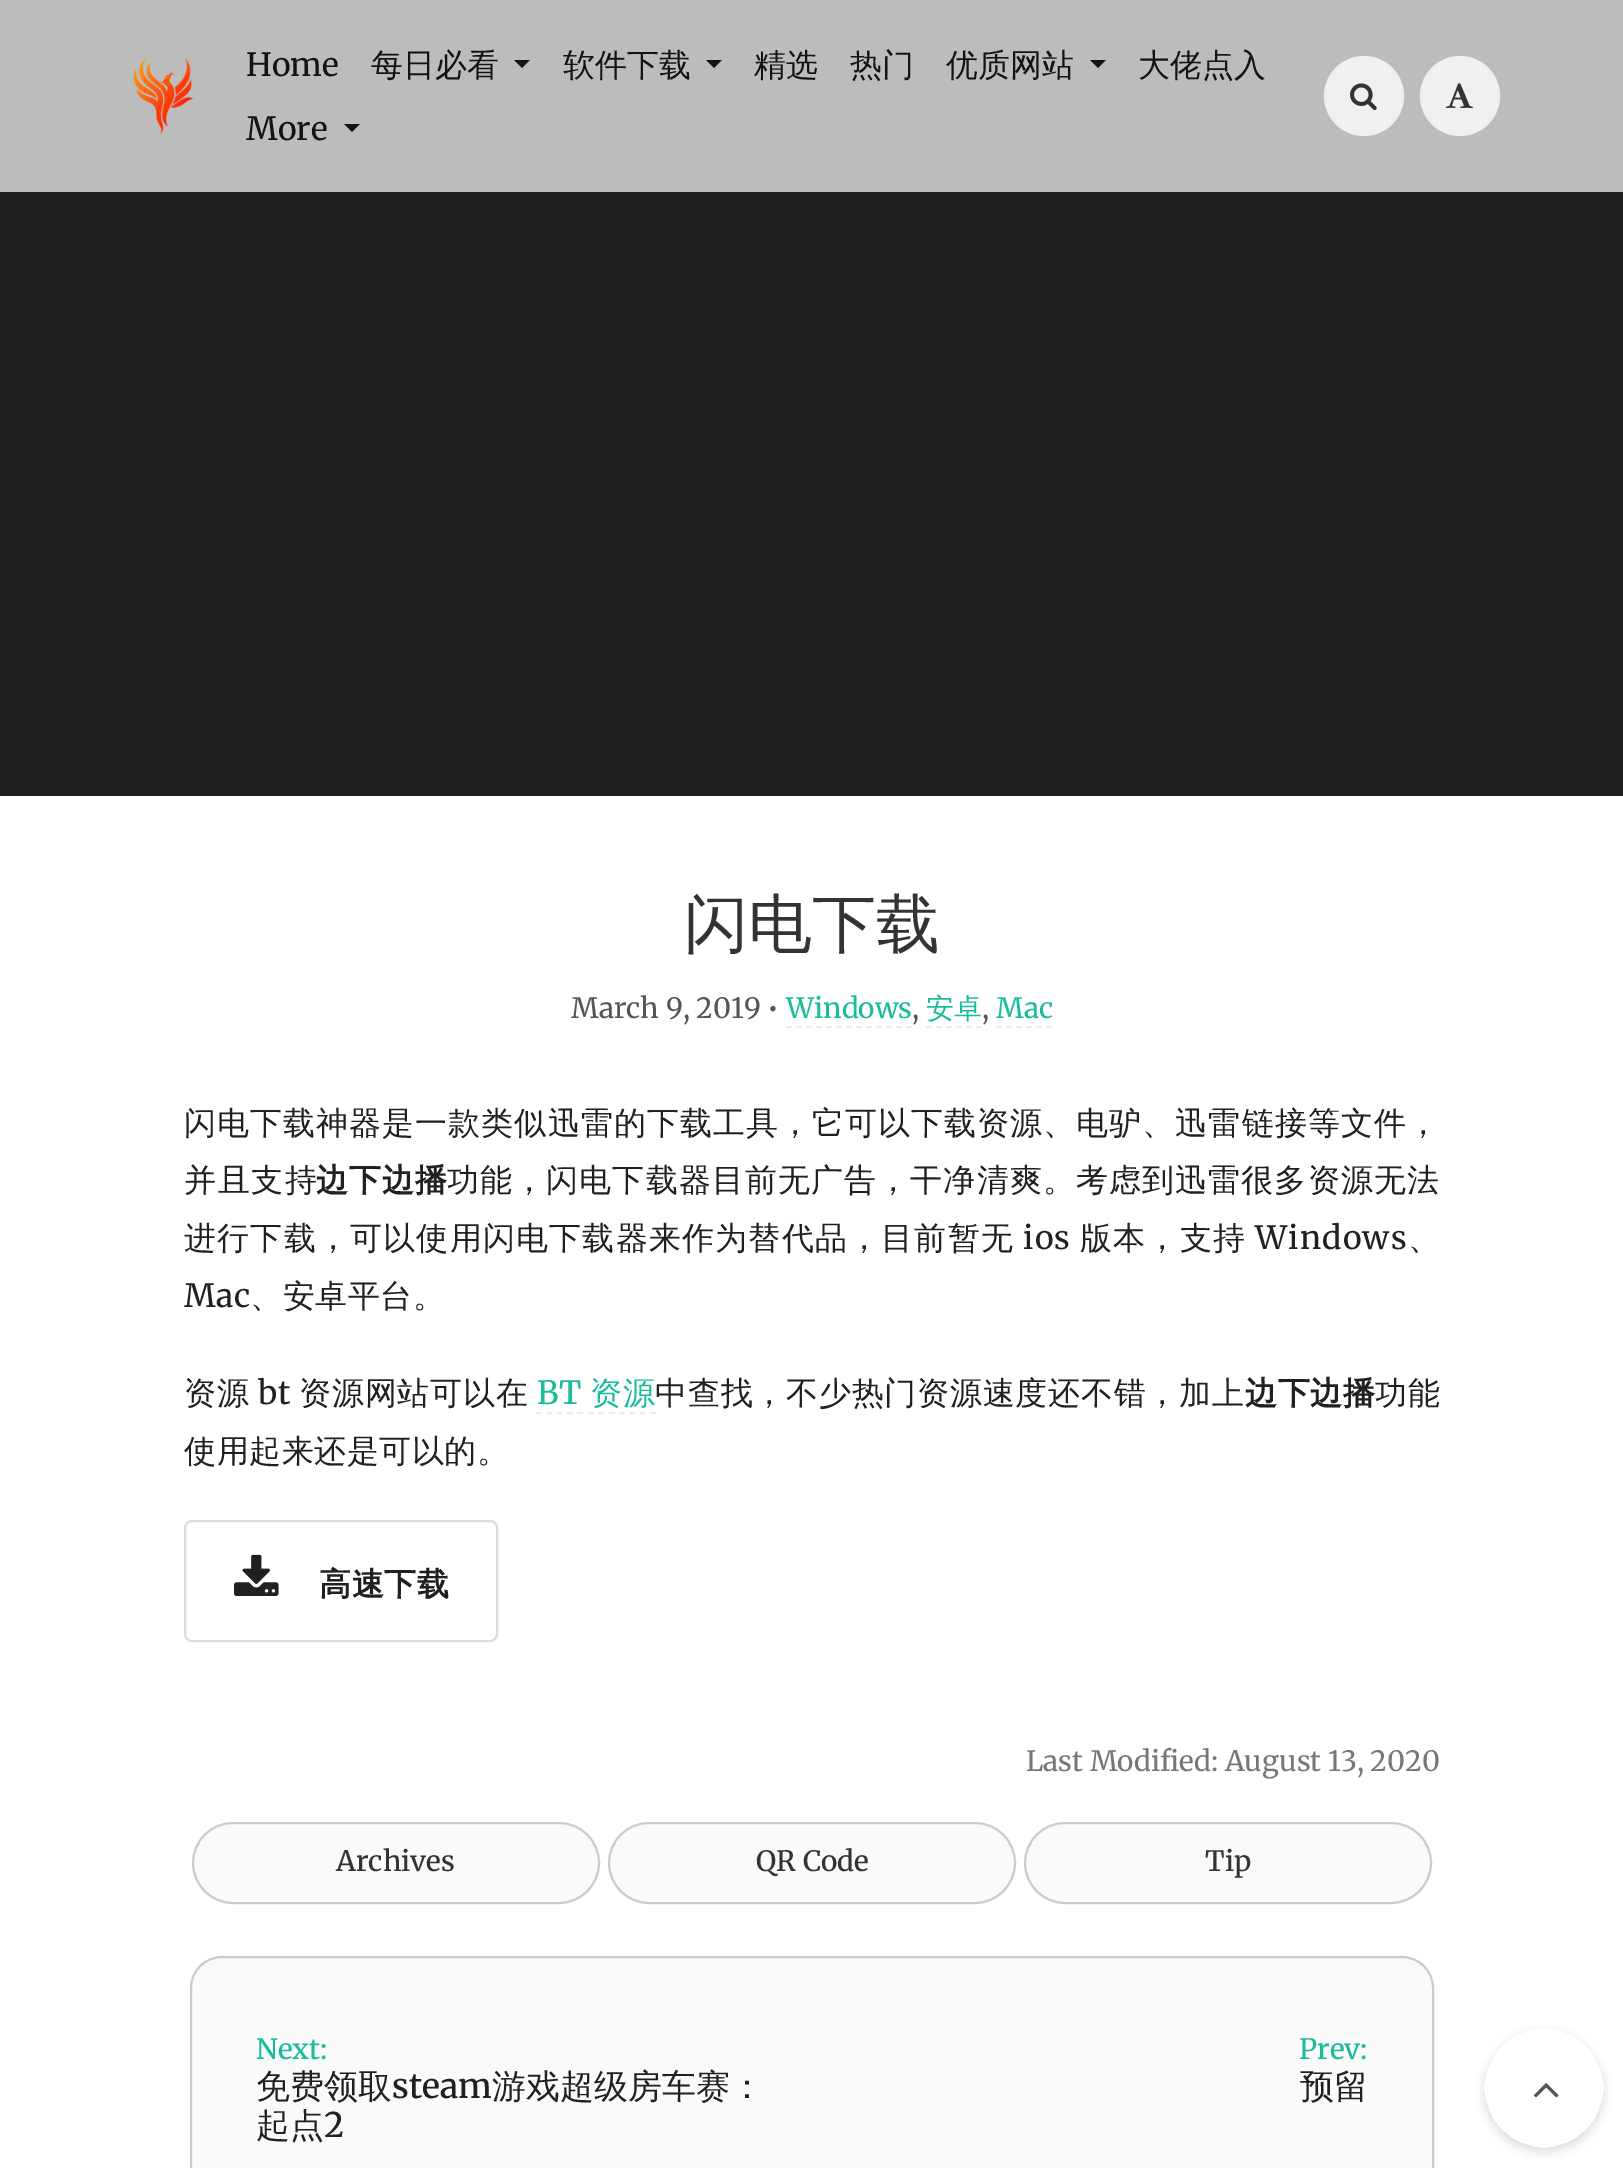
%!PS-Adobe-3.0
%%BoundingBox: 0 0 1623 2168
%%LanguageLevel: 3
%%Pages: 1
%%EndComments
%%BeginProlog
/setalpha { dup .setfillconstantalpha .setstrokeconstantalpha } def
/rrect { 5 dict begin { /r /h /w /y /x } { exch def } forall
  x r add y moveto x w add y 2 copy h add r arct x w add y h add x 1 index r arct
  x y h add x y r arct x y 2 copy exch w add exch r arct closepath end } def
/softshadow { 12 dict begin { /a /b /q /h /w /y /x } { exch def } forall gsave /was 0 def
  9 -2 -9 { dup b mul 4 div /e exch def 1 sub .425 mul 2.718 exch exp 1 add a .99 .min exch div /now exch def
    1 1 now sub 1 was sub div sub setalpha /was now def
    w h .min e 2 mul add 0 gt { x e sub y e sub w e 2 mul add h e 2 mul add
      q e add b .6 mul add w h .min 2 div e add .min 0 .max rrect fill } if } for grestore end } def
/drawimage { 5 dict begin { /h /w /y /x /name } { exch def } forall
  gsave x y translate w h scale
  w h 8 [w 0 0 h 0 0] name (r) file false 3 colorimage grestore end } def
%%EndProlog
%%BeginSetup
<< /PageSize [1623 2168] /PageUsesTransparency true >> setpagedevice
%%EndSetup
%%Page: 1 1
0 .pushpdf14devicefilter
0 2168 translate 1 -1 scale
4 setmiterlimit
1 setgray
0 0 1623 2168 rectfill
0.118 0.118 0.122 setrgbcolor
0 192 1623 604 rectfill
0 setgray
-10 20 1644 172 0 5 0.12 softshadow
0.737 setgray
0 0 1623 192 rectfill
(images/1.raw) 133 58 61 77 drawimage
0.075 setgray
newpath 514 60 moveto 530 60 lineto 522 68 lineto closepath fill
newpath 706 60 moveto 722 60 lineto 714 68 lineto closepath fill
newpath 1090 60 moveto 1106 60 lineto 1098 68 lineto closepath fill
newpath 344 124 moveto 360 124 lineto 352 132 lineto closepath fill
0.941 setgray
newpath 1364 96 40 0 360 arc closepath fill
(images/2.raw) 1350 83 27 28 drawimage
newpath 1460 96 40 0 360 arc closepath fill
(images/3.raw) 1446 83 27 26 drawimage
0.933 setgray
2 setlinewidth
[6 4] 0 setdash
newpath 786 1027 moveto 912 1027 lineto stroke
newpath 926 1027 moveto 982 1027 lineto stroke
newpath 996 1027 moveto 1052 1027 lineto stroke
[6 4.36] 0 setdash
newpath 536 1413 moveto 656 1413 lineto stroke
0.867 setgray
[] 0 setdash
185 1521 312 120 7 rrect stroke
(images/4.raw) 234 1554 45 42 drawimage
0.98 setgray
193 1823 406 80 40 rrect gsave fill grestore
0.8 setgray
stroke
0.98 setgray
609 1823 406 80 40 rrect gsave fill grestore
0.8 setgray
stroke
0.98 setgray
1025 1823 406 80 40 rrect gsave fill grestore
0.8 setgray
stroke
0.98 setgray
191 1957 1242 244 31 rrect gsave fill grestore
0.8 setgray
stroke
gsave
newpath 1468 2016 moveto 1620 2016 lineto 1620 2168 lineto 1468 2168 lineto closepath 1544 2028 moveto 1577 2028 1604 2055 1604 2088 curveto 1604 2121 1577 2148 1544 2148 curveto 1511 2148 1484 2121 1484 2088 curveto 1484 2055 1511 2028 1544 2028 curveto closepath eoclip newpath
0 setgray
1484 2032 120 120 60 5 0.12 softshadow
grestore
(images/5.raw) 1533 2083 26 15 drawimage
/Merriweather-Regular [32 0 0 -32 0 0] selectfont
0.075 setgray
246 76 moveto (Home) show
/WenQuanYiZenHei-Medium [32 0 0 -32 0 0] selectfont
371 76 moveto (每日必看) show
563 76 moveto (软件下载) show
754 76 moveto (精选) show
850 76 moveto (热门) show
946 76 moveto (优质网站) show
1138 76 moveto (大佬点入) show
/Merriweather-Regular [32 0 0 -32 0 0] selectfont
246 140 moveto (More) show
/WenQuanYiZenHei-Medium [64 0 0 -64 0 0] selectfont
0.2 setgray
684 946 moveto (闪电下载) show
/Merriweather-Regular [28 0 0 -28 0 0] selectfont
0.333 setgray
571 1018 moveto (March 9, 2019 •) show
0.102 0.737 0.612 setrgbcolor
786 1018 moveto (Windows) show
0.333 setgray
912 1018 moveto (,) show
/WenQuanYiZenHei-Medium [28 0 0 -28 0 0] selectfont
0.102 0.737 0.612 setrgbcolor
926 1018 moveto (安卓) show
/Merriweather-Regular [28 0 0 -28 0 0] selectfont
0.333 setgray
982 1018 moveto (,) show
0.102 0.737 0.612 setrgbcolor
996 1018 moveto (Mac) show
/WenQuanYiZenHei-Medium [32 0 0 -32 0 0] selectfont
0.125 setgray
184 1134 moveto 1.05 0 (闪电下载神器是一款类似迅雷的下载工具，它可以下载资源、电驴、迅雷链接等文件，) ashow
184 1191 moveto 1.5 0 (并且支持) ashow
/WenQuanYiZenHei-Bold [32 0 0 -32 0 0] selectfont
316 1191 moveto 1 0 (边下边播) ashow
/WenQuanYiZenHei-Medium [32 0 0 -32 0 0] selectfont
447 1191 moveto 1.1 0 (功能，闪电下载器目前无广告，干净清爽。考虑到迅雷很多资源无法) ashow
184 1249 moveto 1.2 0 (进行下载，可以使用闪电下载器来作为替代品，目前暂无) ashow
/Merriweather-Regular [32 0 0 -32 0 0] selectfont
1023 1249 moveto 1.2 0 (ios) ashow
/WenQuanYiZenHei-Medium [32 0 0 -32 0 0] selectfont
1080 1249 moveto 1.2 0 (版本，支持) ashow
/Merriweather-Regular [32 0 0 -32 0 0] selectfont
1255 1249 moveto 1.2 0 (Windows) ashow
/WenQuanYiZenHei-Medium [32 0 0 -32 0 0] selectfont
1408 1249 moveto 1.2 0 (、) ashow
/Merriweather-Regular [32 0 0 -32 0 0] selectfont
184 1307 moveto 0.5 0 (Mac) ashow
/WenQuanYiZenHei-Medium [32 0 0 -32 0 0] selectfont
250 1307 moveto 0.5 0 (、安卓平台。) ashow
184 1404 moveto 0.75 0 (资源) ashow
/Merriweather-Regular [32 0 0 -32 0 0] selectfont
258 1404 moveto 0.75 0 (bt) ashow
/WenQuanYiZenHei-Medium [32 0 0 -32 0 0] selectfont
299 1404 moveto 0.75 0 (资源网站可以在) ashow
/Merriweather-Medium [32 0 0 -32 0 0] selectfont
0.102 0.737 0.612 setrgbcolor
537 1404 moveto 0.5 0 (BT) ashow
/WenQuanYiZenHei-Medium [32 0 0 -32 0 0] selectfont
590 1404 moveto 0.5 0 (资源) ashow
0.125 setgray
655 1404 moveto 0.75 0 (中查找，不少热门资源速度还不错，加上) ashow
/WenQuanYiZenHei-Bold [32 0 0 -32 0 0] selectfont
1245 1404 moveto 0.5 0 (边下边播) ashow
/WenQuanYiZenHei-Medium [32 0 0 -32 0 0] selectfont
1375 1404 moveto 0.5 0 (功能) ashow
184 1462 moveto 0.5 0 (使用起来还是可以的。) ashow
/WenQuanYiZenHei-Bold [32 0 0 -32 0 0] selectfont
319 1595 moveto 0.5 0 (高速下载) ashow
/Merriweather-Regular [28 0 0 -28 0 0] selectfont
0.467 setgray
1026 1771 moveto (Last Modified: August 13, 2020) show
/Merriweather-Medium [28 0 0 -28 0 0] selectfont
0.2 setgray
336 1871 moveto (Archives) show
756 1871 moveto (QR Code) show
1205 1871 moveto (Tip) show
0.102 0.737 0.612 setrgbcolor
256 2059 moveto (Next:) show
/WenQuanYiZenHei-Medium [34 0 0 -34 0 0] selectfont
0.125 setgray
256 2098 moveto (免费领取) show
/Merriweather-Medium [34 0 0 -34 0 0] selectfont
392 2098 moveto (steam) show
/WenQuanYiZenHei-Medium [34 0 0 -34 0 0] selectfont
492 2098 moveto (游戏超级房车赛：) show
256 2137 moveto (起点) show
/Merriweather-Medium [34 0 0 -34 0 0] selectfont
324 2137 moveto (2) show
/Merriweather-Medium [28 0 0 -28 0 0] selectfont
0.102 0.737 0.612 setrgbcolor
1299 2059 moveto (Prev:) show
/WenQuanYiZenHei-Medium [34 0 0 -34 0 0] selectfont
0.125 setgray
1300 2098 moveto (预留) show
.poppdf14devicefilter showpage
%%EOF
